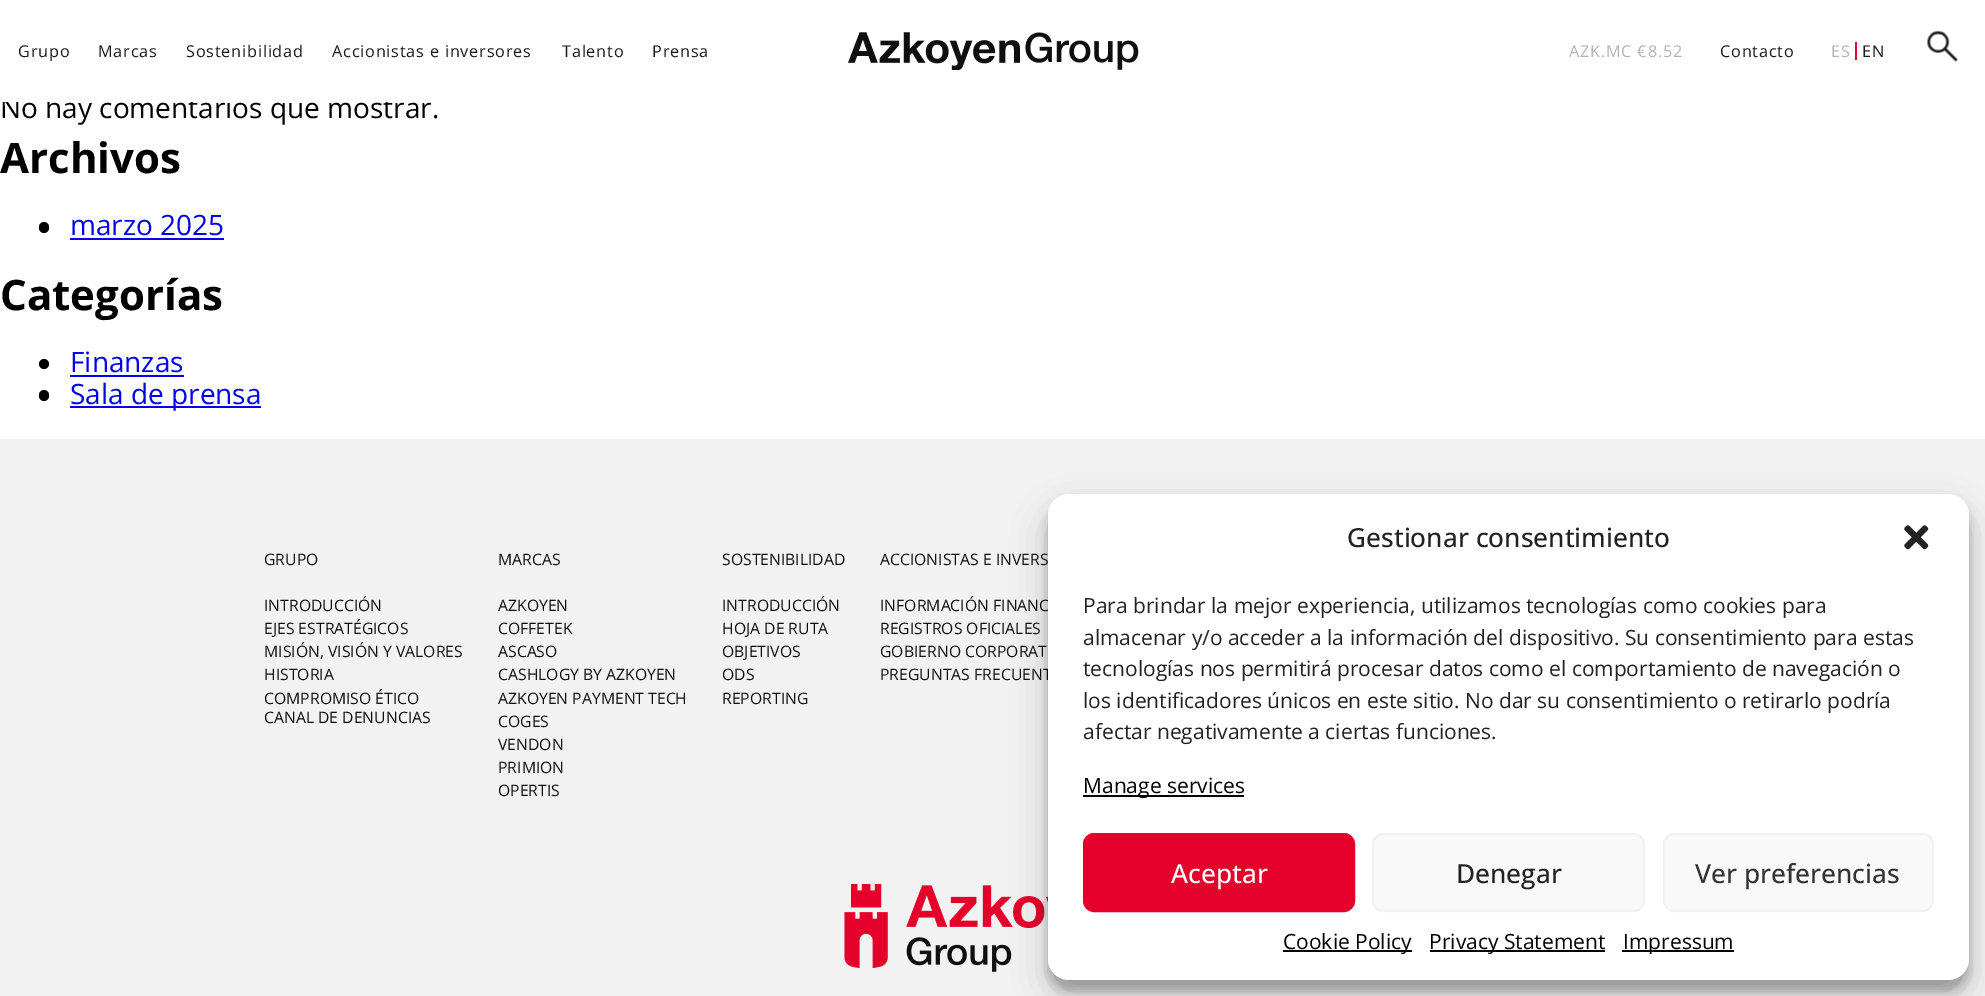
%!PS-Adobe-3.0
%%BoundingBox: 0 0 1985 996
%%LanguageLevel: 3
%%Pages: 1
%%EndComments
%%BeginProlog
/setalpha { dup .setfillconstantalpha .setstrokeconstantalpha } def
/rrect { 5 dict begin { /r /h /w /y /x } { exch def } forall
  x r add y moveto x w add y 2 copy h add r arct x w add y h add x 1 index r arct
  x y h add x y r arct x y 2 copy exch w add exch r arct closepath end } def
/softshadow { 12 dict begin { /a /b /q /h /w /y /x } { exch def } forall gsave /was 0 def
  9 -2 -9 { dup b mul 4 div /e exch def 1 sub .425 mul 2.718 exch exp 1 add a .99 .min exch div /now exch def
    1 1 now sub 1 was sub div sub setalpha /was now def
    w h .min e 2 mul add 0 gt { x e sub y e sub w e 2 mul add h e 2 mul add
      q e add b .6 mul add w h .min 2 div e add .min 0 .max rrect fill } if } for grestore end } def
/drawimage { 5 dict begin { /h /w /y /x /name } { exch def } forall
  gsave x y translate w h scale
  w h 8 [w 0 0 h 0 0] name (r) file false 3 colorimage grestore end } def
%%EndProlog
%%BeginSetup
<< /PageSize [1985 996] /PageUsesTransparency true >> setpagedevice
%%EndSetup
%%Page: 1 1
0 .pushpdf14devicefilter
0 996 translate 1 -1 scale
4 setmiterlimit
1 setgray
0 0 1985 996 rectfill
(images/1.raw) 848 32 291 38 drawimage
0.894 0 0.169 setrgbcolor
1855 42 2 18 rectfill
(images/2.raw) 1927 30 31 32 drawimage
0 setgray
39 222 10 11 5 rrect fill
0 0 0.933 setrgbcolor
70 238 154 2 rectfill
0 setgray
newpath 44 364 5 0 360 arc closepath fill
0 0 0.933 setrgbcolor
70 375 114 2 rectfill
0 setgray
39 390 10 11 5 rrect fill
0 0 0.933 setrgbcolor
70 406 191 2 rectfill
0.949 setgray
0 439 1985 557 rectfill
(images/3.raw) 844 884 204 88 drawimage
0 setgray
1048 504 921 487 21 5 0.23 softshadow
1048 511 921 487 21 17.5 0.19 softshadow
/OpenSans-Regular [16.25 0 0 -16.25 0 0] selectfont
0.102 setgray
18 57 moveto 0.8 0 (Grupo) ashow
98 57 moveto 0.8 0 (Marcas) ashow
186 57 moveto 0.8 0 (Sostenibilidad) ashow
332 57 moveto 0.8 0 (Accionistas e inversores) ashow
562 57 moveto 0.8 0 (Talento) ashow
652 57 moveto 0.8 0 (Prensa) ashow
0.702 setgray
1569 57 moveto 0.8 0 (AZK.MC €8.52) ashow
0.102 setgray
1720 57 moveto 0.8 0 (Contacto) ashow
0.702 setgray
1831 57 moveto 0.8 0 (ES) ashow
0.102 setgray
1862 57 moveto 0.8 0 (EN) ashow
/OpenSans-Regular [28 0 0 -28 0 0] selectfont
0 setgray
0 118 moveto (No hay comentarios que mostrar.) show
1 setgray
2 96 387 6 rectfill
/OpenSans-Bold [42 0 0 -42 0 0] selectfont
0 setgray
0 173 moveto (Archivos) show
/OpenSans-Regular [28 0 0 -28 0 0] selectfont
0 0 0.933 setrgbcolor
70 235 moveto (marzo 2025) show
/OpenSans-Bold [42 0 0 -42 0 0] selectfont
0 setgray
0 310 moveto (Categorías) show
/OpenSans-Regular [28 0 0 -28 0 0] selectfont
0 0 0.933 setrgbcolor
70 372 moveto (Finanzas) show
70 404 moveto (Sala de prensa) show
/OpenSans-Regular [15.75 0 0 -15.75 0 0] selectfont
0.059 setgray
264 565 moveto (GRUPO) show
264 611 moveto (INTRODUCCIÓN) show
264 634 moveto (EJES ESTRATÉGICOS) show
264 657 moveto (MISIÓN, VISIÓN Y VALORES) show
264 680 moveto (HISTORIA) show
264 704 moveto (COMPROMISO ÉTICO) show
264 723 moveto (CANAL DE DENUNCIAS) show
498 565 moveto (MARCAS) show
498 611 moveto (AZKOYEN) show
498 634 moveto (COFFETEK) show
498 657 moveto (ASCASO) show
498 680 moveto (CASHLOGY BY AZKOYEN) show
498 704 moveto (AZKOYEN PAYMENT TECH) show
498 727 moveto (COGES) show
498 750 moveto (VENDON) show
498 773 moveto (PRIMION) show
498 796 moveto (OPERTIS) show
722 565 moveto (SOSTENIBILIDAD) show
722 611 moveto (INTRODUCCIÓN) show
722 634 moveto (HOJA DE RUTA) show
722 657 moveto (OBJETIVOS) show
722 680 moveto (ODS) show
722 704 moveto (REPORTING) show
880 565 moveto (ACCIONISTAS E INVERS) show
880 611 moveto (INFORMACIÓN FINANC) show
880 634 moveto (REGISTROS OFICIALES) show
880 657 moveto (GOBIERNO CORPORAT) show
880 680 moveto (PREGUNTAS FRECUENT) show
1 setgray
1048 494 921 486 21 rrect fill
/OpenSans-Medium [26.25 0 0 -26.25 0 0] selectfont
0.133 setgray
1347 547 moveto (Gestionar consentimiento) show
(images/4.raw) 1904 525 25 25 drawimage
/OpenSans-Regular [21 0 0 -21 0 0] selectfont
1083 613 moveto (Para brindar la mejor experiencia, utilizamos tecnologías como cookies para) show
1083 645 moveto (almacenar y/o acceder a la información del dispositivo. Su consentimiento para estas) show
1083 676 moveto (tecnologías nos permitirá procesar datos como el comportamiento de navegación o) show
1083 708 moveto (los identificadores únicos en este sitio. No dar su consentimiento o retirarlo podría) show
1083 739 moveto (afectar negativamente a ciertas funciones.) show
0 setgray
1083 795 161 2 rectfill
1083 793 moveto (Manage services) show
0.894 0 0.169 setrgbcolor
1084 834 270 77 10 rrect gsave fill grestore
2 setlinewidth
stroke
/OpenSans-Medium [26.25 0 0 -26.25 0 0] selectfont
1 setgray
1171 883 moveto (Aceptar) show
0.976 setgray
1373 834 271 77 10 rrect gsave fill grestore
0.949 setgray
stroke
0.133 setgray
1456 883 moveto (Denegar) show
0.976 setgray
1664 834 269 77 10 rrect gsave fill grestore
0.949 setgray
stroke
0.2 setgray
1695 883 moveto (Ver preferencias) show
0 setgray
1283 950 129 2 rectfill
/OpenSans-Regular [21 0 0 -21 0 0] selectfont
1283 949 moveto (Cookie Policy) show
1430 950 175 2 rectfill
1429 949 moveto (Privacy Statement) show
1622 950 112 2 rectfill
1623 949 moveto (Impressum) show
.poppdf14devicefilter showpage
%%EOF
